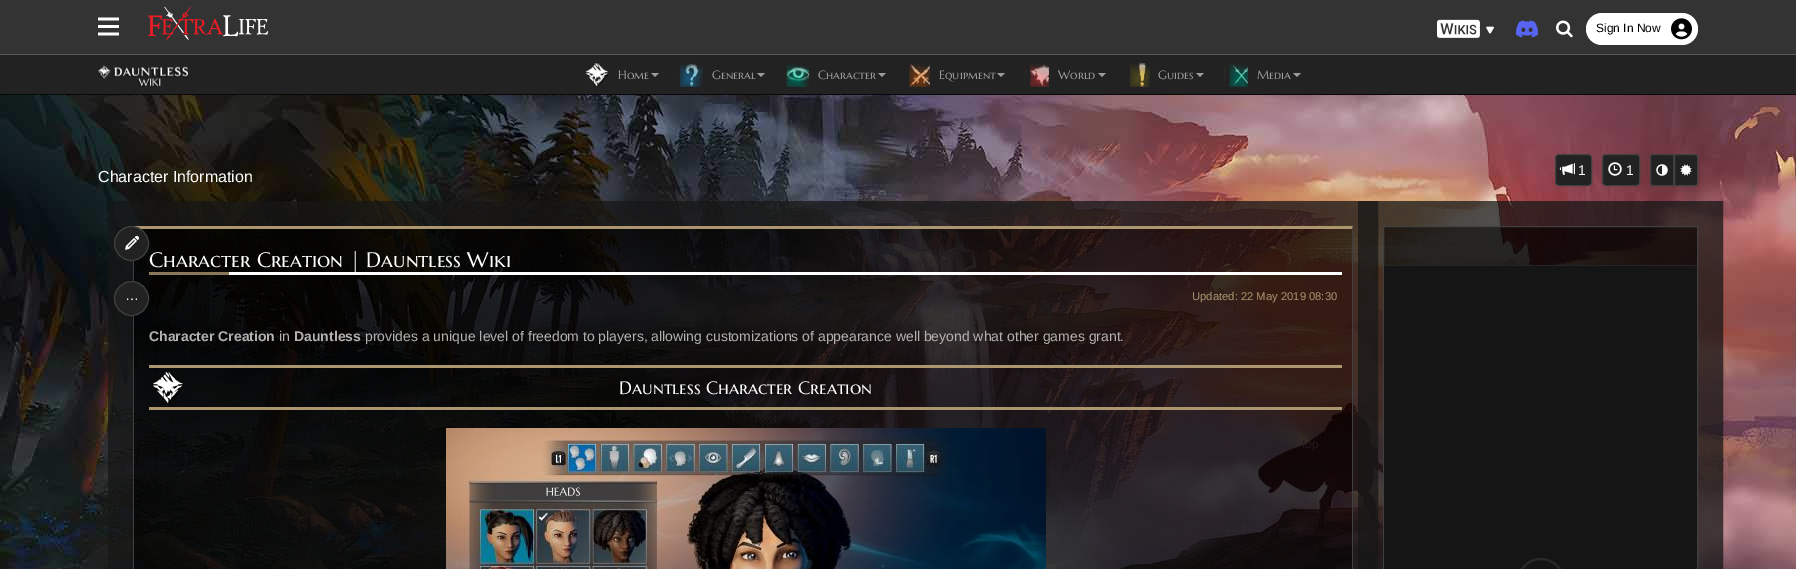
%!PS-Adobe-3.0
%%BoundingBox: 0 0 1796 569
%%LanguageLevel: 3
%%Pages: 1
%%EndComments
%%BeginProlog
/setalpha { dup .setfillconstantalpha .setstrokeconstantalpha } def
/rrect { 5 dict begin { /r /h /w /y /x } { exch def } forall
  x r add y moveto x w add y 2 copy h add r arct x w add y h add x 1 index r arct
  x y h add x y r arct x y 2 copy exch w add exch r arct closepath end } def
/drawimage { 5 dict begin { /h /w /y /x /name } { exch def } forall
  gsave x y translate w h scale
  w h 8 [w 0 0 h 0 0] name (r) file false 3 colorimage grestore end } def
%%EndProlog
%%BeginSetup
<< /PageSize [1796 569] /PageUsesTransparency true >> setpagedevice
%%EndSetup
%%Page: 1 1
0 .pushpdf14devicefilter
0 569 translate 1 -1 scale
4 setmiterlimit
1 setgray
0 0 1796 569 rectfill
0.2 setgray
0 0 1796 54 rectfill
0.349 setgray
0 54 1796 1 rectfill
(images/1.raw) 98 17 21 19 drawimage
(images/2.raw) 148 6 120 35 drawimage
(images/3.raw) 1437 19 57 19 drawimage
(images/4.raw) 1516 20 22 18 drawimage
(images/5.raw) 1556 20 17 18 drawimage
1 setgray
1586 13 112 32 16 rrect fill
(images/6.raw) 1671 18 21 22 drawimage
0.133 setgray
0 55 1796 39 rectfill
0.031 setgray
0 94 1796 1 rectfill
(images/7.raw) 98 65 90 22 drawimage
(images/8.raw) 585 63 24 24 drawimage
0.616 setgray
newpath 651 73 moveto 659 73 lineto 655 77 lineto closepath fill
(images/9.raw) 679 63 24 24 drawimage
newpath 757 73 moveto 765 73 lineto 761 77 lineto closepath fill
(images/10.raw) 786 64 23 23 drawimage
newpath 878 73 moveto 886 73 lineto 882 77 lineto closepath fill
(images/11.raw) 909 63 21 24 drawimage
newpath 997 73 moveto 1005 73 lineto 1001 77 lineto closepath fill
(images/12.raw) 1025 63 24 24 drawimage
newpath 1098 73 moveto 1106 73 lineto 1102 77 lineto closepath fill
(images/13.raw) 1130 63 20 24 drawimage
newpath 1196 73 moveto 1204 73 lineto 1200 77 lineto closepath fill
(images/14.raw) 1224 64 24 23 drawimage
newpath 1293 73 moveto 1301 73 lineto 1297 77 lineto closepath fill
(images/15.raw) 0 95 1796 474 drawimage
0.133 setgray
1555.5 154.5 36 31 3.5 rrect gsave fill grestore
0.251 setgray
stroke
(images/16.raw) 1559 163 16 12 drawimage
0.133 setgray
1602.5 154.5 37 31 3.5 rrect gsave fill grestore
0.251 setgray
stroke
(images/17.raw) 1608 162 14 14 drawimage
0.133 setgray
newpath 1653 154.5 moveto 1673.5 154.5 lineto 1673.5 185.5 lineto 1653 185.5 lineto 1651.5 185.5 1650.5 184.5 1650.5 183 curveto 1650.5 157 lineto 1650.5 155.5 1651.5 154.5 1653 154.5 curveto closepath gsave fill grestore
0.251 setgray
stroke
(images/18.raw) 1656 164 12 12 drawimage
0.133 setgray
newpath 1674.5 154.5 moveto 1695 154.5 lineto 1696.5 154.5 1697.5 155.5 1697.5 157 curveto 1697.5 183 lineto 1697.5 184.5 1696.5 185.5 1695 185.5 curveto 1674.5 185.5 lineto closepath gsave fill grestore
0.251 setgray
stroke
(images/19.raw) 1680 164 12 12 drawimage
0.75 setalpha
0.086 setgray
25 setlinewidth
1370.5 213.5 340 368 rectstroke
120.5 213.5 1245 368 rectstroke
0 setgray
134 229 1218 340 rectfill
1 setalpha
0.671 0.588 0.435 setrgbcolor
newpath 133 226 moveto 1353 226 lineto 1352 229 lineto 134 229 lineto closepath fill
0.251 setgray
newpath 133 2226 moveto 133 226 lineto 134 229 lineto 134 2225 lineto closepath fill
0.133 setgray
newpath 131.5 243.5 17 0 360 arc closepath gsave fill grestore
0.251 setgray
1 setlinewidth
stroke
(images/20.raw) 125 235 14 15 drawimage
0.133 setgray
newpath 131.5 298.5 17 0 360 arc closepath gsave fill grestore
0.251 setgray
stroke
newpath 1353 226 moveto 1353 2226 lineto 1352 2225 lineto 1352 229 lineto closepath fill
1 setgray
229 272 1113 3 rectfill
0.537 0.471 0.349 setrgbcolor
149 272 80 3 rectfill
(images/21.raw) 153 372 30 32 drawimage
0.671 0.588 0.435 setrgbcolor
149 365 1193 3 rectfill
149 407 1193 3 rectfill
(images/22.raw) 446 428 600 141 drawimage
0.85 setalpha
0 setgray
1384 227 313 38 rectfill
1 setalpha
0.251 setgray
1383.5 226.5 314 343 rectstroke
0.141 setgray
1384 265 313 1 rectfill
0.082 setgray
1384 266 313 303 rectfill
0.161 setgray
2 setlinewidth
1518 559 46 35 23 rrect stroke
/LiberationSans-Regular [12 0 0 -12 0 0] selectfont
0 setgray
1596 32 moveto (Sign In Now) show
/MarcellusSC-Regular [12 0 0 -12 0 0] selectfont
0.616 setgray
618 79 moveto (Home) show
712 79 moveto (General) show
818 79 moveto (Character) show
939 79 moveto (Equipment) show
1058 79 moveto (World) show
1158 79 moveto (Guides) show
1257 79 moveto (Media) show
/LiberationSans-Regular [16 0 0 -16 0 0] selectfont
1 setgray
98 182 moveto (Character Information) show
/LiberationSans-Regular [14 0 0 -14 0 0] selectfont
1578 175 moveto (1) show
1626 175 moveto (1) show
125 300 moveto (…) show
/MarcellusSC-Regular [21 0 0 -21 0 0] selectfont
149 267 moveto (Character Creation | Dauntless Wiki) show
/LiberationSans-Regular [11.25 0 0 -11.25 0 0] selectfont
0.671 0.588 0.435 setrgbcolor
1192 300 moveto (Updated: 22 May 2019 08:30) show
/LiberationSans-Bold [14 0 0 -14 0 0] selectfont
0.706 0.698 0.69 setrgbcolor
149 341 moveto (Character Creation) show
/LiberationSans-Regular [14 0 0 -14 0 0] selectfont
279 341 moveto (in) show
/LiberationSans-Bold [14 0 0 -14 0 0] selectfont
294 341 moveto (Dauntless) show
/LiberationSans-Regular [14 0 0 -14 0 0] selectfont
365 341 moveto (provides a unique level of freedom to players, allowing customizations of appearance well beyond what other games grant.) show
/MarcellusSC-Regular [18 0 0 -18 0 0] selectfont
1 setgray
619 394 moveto (Dauntless Character Creation) show
/LiberationSans-Regular [12 0 0 -12 0 0] selectfont
0.137 0.102 0.118 setrgbcolor
1302 448 moveto (top) show
.poppdf14devicefilter showpage
%%EOF
